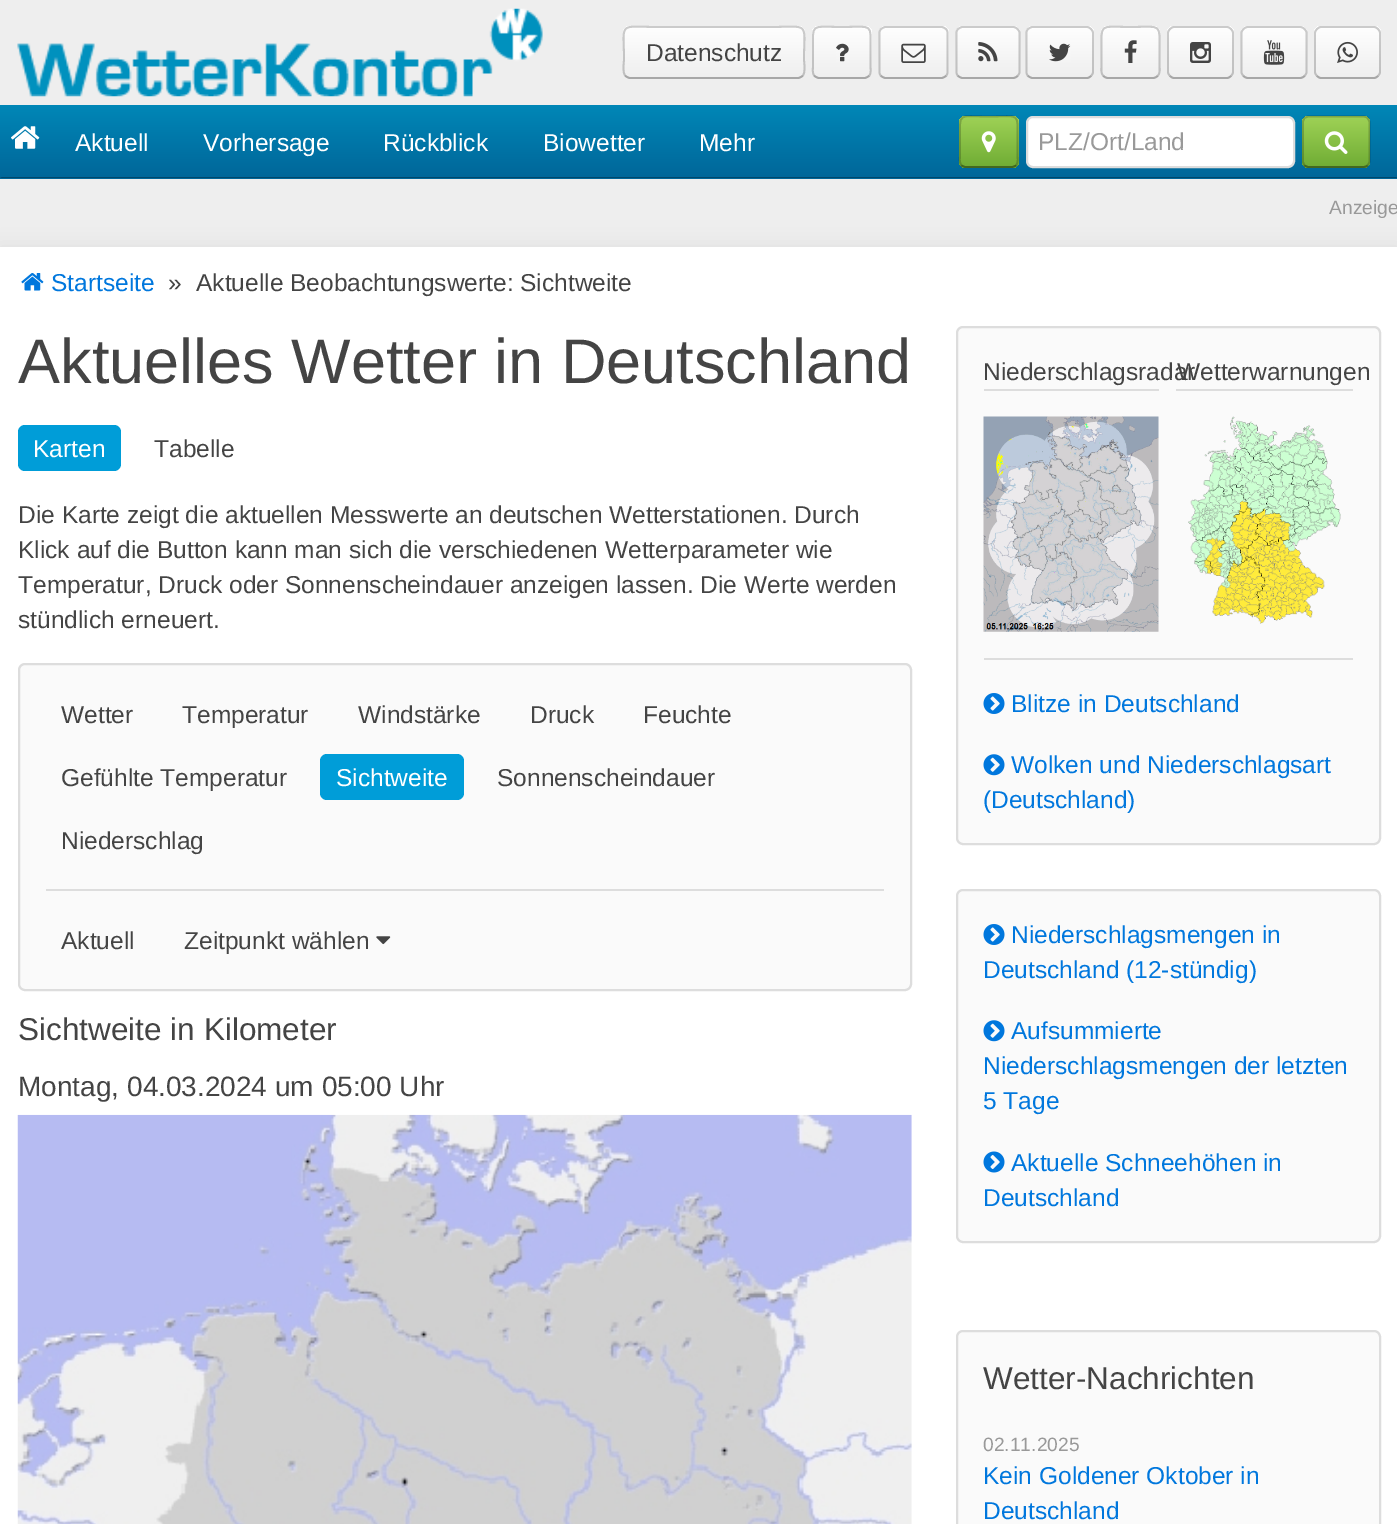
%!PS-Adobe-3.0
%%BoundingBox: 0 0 1397 1524
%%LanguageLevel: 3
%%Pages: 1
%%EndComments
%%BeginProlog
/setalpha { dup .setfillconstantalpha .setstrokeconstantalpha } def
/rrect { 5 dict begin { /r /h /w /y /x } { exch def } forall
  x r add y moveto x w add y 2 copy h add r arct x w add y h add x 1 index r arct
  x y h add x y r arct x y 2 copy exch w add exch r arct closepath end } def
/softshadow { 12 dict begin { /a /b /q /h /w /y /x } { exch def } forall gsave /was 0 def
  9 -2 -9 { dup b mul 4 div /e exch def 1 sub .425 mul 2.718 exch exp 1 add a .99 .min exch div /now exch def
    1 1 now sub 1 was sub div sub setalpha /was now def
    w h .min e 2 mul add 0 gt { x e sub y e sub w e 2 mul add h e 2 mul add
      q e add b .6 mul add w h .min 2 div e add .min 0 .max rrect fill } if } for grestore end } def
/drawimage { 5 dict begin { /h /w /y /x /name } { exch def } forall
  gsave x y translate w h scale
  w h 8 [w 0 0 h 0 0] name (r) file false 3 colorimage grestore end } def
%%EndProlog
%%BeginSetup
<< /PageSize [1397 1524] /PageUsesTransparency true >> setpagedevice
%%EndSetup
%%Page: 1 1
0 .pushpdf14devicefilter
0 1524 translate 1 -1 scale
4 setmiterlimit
0.933 setgray
0 0 1397 1524 rectfill
(images/1.raw) 17 8 526 89 drawimage
gsave 623 26 182 53 7 rrect clip newpath
<< /ShadingType 2 /ColorSpace /DeviceRGB /Coords [714 26 714 79] /Extend [true true] /Function << /FunctionType 2 /Domain [0 1] /C0 [1 1 1] /C1 [0.933 0.933 0.933] /N 1 >> >> shfill grestore
0.655 setgray
1.8 setlinewidth
newpath 802.5 76 moveto 801 77 799.5 78 798 78 curveto 630 78 lineto 628.5 78 627 77 625.5 76 curveto stroke
0.2 setalpha
0 setgray
newpath 625.5 76 moveto 622 72.5 624 63 624 59 curveto 624 21 617.5 27 658 27 curveto 770 27 lineto 810.5 27 804 21 804 59 curveto 804 63 806 72.5 802.5 76 curveto stroke
1 setalpha
gsave 812 26 60 53 7 rrect clip newpath
<< /ShadingType 2 /ColorSpace /DeviceRGB /Coords [842 26 842 79] /Extend [true true] /Function << /FunctionType 2 /Domain [0 1] /C0 [1 1 1] /C1 [0.933 0.933 0.933] /N 1 >> >> shfill grestore
0.655 setgray
newpath 869 76 moveto 867.5 77 866 78 864.5 78 curveto 819 78 lineto 817.5 78 816 77 814.5 76 curveto stroke
0.2 setalpha
0 setgray
newpath 814.5 76 moveto 812 73.5 813 68.5 813 65.5 curveto 813 52.5 lineto 813 22 809.5 27 842 27 curveto 874 27 870.5 22 870.5 52.5 curveto 870.5 65.5 lineto 870.5 68.5 871.5 73.5 869 76 curveto stroke
1 setalpha
(images/2.raw) 836 43 13 19 drawimage
gsave 879 26 70 53 7 rrect clip newpath
<< /ShadingType 2 /ColorSpace /DeviceRGB /Coords [914 26 914 79] /Extend [true true] /Function << /FunctionType 2 /Domain [0 1] /C0 [1 1 1] /C1 [0.933 0.933 0.933] /N 1 >> >> shfill grestore
0.655 setgray
newpath 946 76 moveto 944.5 77 943 78 941.5 78 curveto 885.5 78 lineto 884 78 882.5 77 881 76 curveto stroke
0.2 setalpha
0 setgray
newpath 881 76 moveto 880 75 879.5 73.5 879.5 72 curveto 879.5 33 lineto 879.5 31.5 880 30 881 29 curveto 882.5 28 884 27 885.5 27 curveto 941.5 27 lineto 943 27 944.5 28 946 29 curveto 947 30 947.5 31.5 947.5 33 curveto 947.5 72 lineto 947.5 73.5 947 75 946 76 curveto stroke
1 setalpha
(images/3.raw) 901 43 25 20 drawimage
gsave 956 26 64 53 7 rrect clip newpath
<< /ShadingType 2 /ColorSpace /DeviceRGB /Coords [988 26 988 79] /Extend [true true] /Function << /FunctionType 2 /Domain [0 1] /C0 [1 1 1] /C1 [0.933 0.933 0.933] /N 1 >> >> shfill grestore
0.655 setgray
newpath 1017.5 76 moveto 1016.5 77 1015 78 1013 78 curveto 962.5 78 lineto 961 78 959.5 77 958 76 curveto stroke
0.2 setalpha
0 setgray
newpath 958 76 moveto 957 75 956.5 73.5 956.5 72 curveto 956.5 33 lineto 956.5 31.5 957 30 958 29 curveto 959.5 28 961 27 962.5 27 curveto 1013 27 lineto 1015 27 1016.5 28 1017.5 29 curveto 1018.5 30 1019.5 31.5 1019.5 33 curveto 1019.5 72 lineto 1019.5 73.5 1018.5 75 1017.5 76 curveto stroke
1 setalpha
(images/4.raw) 978 42 20 20 drawimage
gsave 1026 26 68 53 7 rrect clip newpath
<< /ShadingType 2 /ColorSpace /DeviceRGB /Coords [1060 26 1060 79] /Extend [true true] /Function << /FunctionType 2 /Domain [0 1] /C0 [1 1 1] /C1 [0.933 0.933 0.933] /N 1 >> >> shfill grestore
0.655 setgray
newpath 1091 76 moveto 1090 77 1088.5 78 1087 78 curveto 1032.5 78 lineto 1031 78 1029.5 77 1028 76 curveto stroke
0.2 setalpha
0 setgray
newpath 1028 76 moveto 1027 75 1026.5 73.5 1026.5 72 curveto 1026.5 33 lineto 1026.5 31.5 1027 30 1028 29 curveto 1029.5 28 1031 27 1032.5 27 curveto 1087 27 lineto 1088.5 27 1090 28 1091 29 curveto 1092 30 1093 31.5 1093 33 curveto 1093 72 lineto 1093 73.5 1092 75 1091 76 curveto stroke
1 setalpha
(images/5.raw) 1049 43 22 19 drawimage
gsave 1101 26 59 53 7 rrect clip newpath
<< /ShadingType 2 /ColorSpace /DeviceRGB /Coords [1131 26 1131 79] /Extend [true true] /Function << /FunctionType 2 /Domain [0 1] /C0 [1 1 1] /C1 [0.933 0.933 0.933] /N 1 >> >> shfill grestore
0.655 setgray
newpath 1157.5 76 moveto 1156.5 77 1155 78 1153 78 curveto 1108 78 lineto 1106 78 1104.5 77 1103.5 76 curveto stroke
0.2 setalpha
0 setgray
newpath 1103.5 76 moveto 1100.5 73.5 1101.5 68.5 1101.5 65.5 curveto 1101.5 52.5 lineto 1101.5 22 1098.5 27 1130.5 27 curveto 1162.5 27 1159.5 22 1159.5 52.5 curveto 1159.5 65.5 lineto 1159.5 68.5 1160.5 73.5 1157.5 76 curveto stroke
1 setalpha
(images/6.raw) 1124 40 13 23 drawimage
gsave 1167 26 67 53 7 rrect clip newpath
<< /ShadingType 2 /ColorSpace /DeviceRGB /Coords [1201 26 1201 79] /Extend [true true] /Function << /FunctionType 2 /Domain [0 1] /C0 [1 1 1] /C1 [0.933 0.933 0.933] /N 1 >> >> shfill grestore
0.655 setgray
newpath 1231 76 moveto 1230 77 1228.5 78 1227 78 curveto 1174 78 lineto 1172.5 78 1171 77 1170 76 curveto stroke
0.2 setalpha
0 setgray
newpath 1170 76 moveto 1169 75 1168 73.5 1168 72 curveto 1168 33 lineto 1168 31.5 1169 30 1170 29 curveto 1171 28 1172.5 27 1174 27 curveto 1227 27 lineto 1228.5 27 1230 28 1231 29 curveto 1232 30 1233 31.5 1233 33 curveto 1233 72 lineto 1233 73.5 1232 75 1231 76 curveto stroke
1 setalpha
(images/7.raw) 1190 42 21 21 drawimage
gsave 1241 26 66 53 7 rrect clip newpath
<< /ShadingType 2 /ColorSpace /DeviceRGB /Coords [1274 26 1274 79] /Extend [true true] /Function << /FunctionType 2 /Domain [0 1] /C0 [1 1 1] /C1 [0.933 0.933 0.933] /N 1 >> >> shfill grestore
0.655 setgray
newpath 1304.5 76 moveto 1303.5 77 1302 78 1300 78 curveto 1248 78 lineto 1246 78 1244.5 77 1243.5 76 curveto stroke
0.2 setalpha
0 setgray
newpath 1243.5 76 moveto 1242.5 75 1241.5 73.5 1241.5 72 curveto 1241.5 33 lineto 1241.5 31.5 1242.5 30 1243.5 29 curveto 1244.5 28 1246 27 1248 27 curveto 1300 27 lineto 1302 27 1303.5 28 1304.5 29 curveto 1305.5 30 1306.5 31.5 1306.5 33 curveto 1306.5 72 lineto 1306.5 73.5 1305.5 75 1304.5 76 curveto stroke
1 setalpha
(images/8.raw) 1263 40 22 25 drawimage
gsave 1314 26 67 53 7 rrect clip newpath
<< /ShadingType 2 /ColorSpace /DeviceRGB /Coords [1348 26 1348 79] /Extend [true true] /Function << /FunctionType 2 /Domain [0 1] /C0 [1 1 1] /C1 [0.933 0.933 0.933] /N 1 >> >> shfill grestore
0.655 setgray
newpath 1378 76 moveto 1377 77 1375.5 78 1374 78 curveto 1321 78 lineto 1319.5 78 1318 77 1317 76 curveto stroke
0.2 setalpha
0 setgray
newpath 1317 76 moveto 1316 75 1315 73.5 1315 72 curveto 1315 33 lineto 1315 31.5 1316 30 1317 29 curveto 1318 28 1319.5 27 1321 27 curveto 1374 27 lineto 1375.5 27 1377 28 1378 29 curveto 1379 30 1380 31.5 1380 33 curveto 1380 72 lineto 1380 73.5 1379 75 1378 76 curveto stroke
1 setalpha
(images/9.raw) 1337 41 21 22 drawimage
gsave newpath 0 105 moveto 1397 105 lineto 1397 179 lineto 0 179 lineto closepath clip newpath
<< /ShadingType 2 /ColorSpace /DeviceRGB /Coords [699 105 699 179] /Extend [true true] /Function << /FunctionType 2 /Domain [0 1] /C0 [0 0.529 0.718] /C1 [0 0.4 0.6] /N 1 >> >> shfill grestore
0 0.282 0.424 setrgbcolor
newpath 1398 178 moveto 0 178 lineto 2 177 lineto 1396 177 lineto closepath fill
(images/10.raw) 11 126 29 23 drawimage
gsave 959 116 60 52 7 rrect clip newpath
<< /ShadingType 2 /ColorSpace /DeviceRGB /Coords [989 116 989 168] /Extend [true true] /Function << /FunctionType 2 /Domain [0 1] /C0 [0.624 0.824 0.337] /C1 [0.435 0.675 0.204] /N 1 >> >> shfill grestore
0.4 setalpha
0 setgray
newpath 1016 165.5 moveto 1014.5 166.5 1013 167 1011.5 167 curveto 966 167 lineto 964.5 167 963 166.5 961.5 165.5 curveto stroke
0.2 setalpha
newpath 961.5 165.5 moveto 959 162.5 960 158 960 154.5 curveto 960 142 lineto 960 111 956.5 116.5 989 116.5 curveto 1021 116.5 1017.5 111 1017.5 142 curveto 1017.5 154.5 lineto 1017.5 158 1018.5 162.5 1016 165.5 curveto stroke
1 setalpha
(images/11.raw) 981 131 15 22 drawimage
1 setgray
1027 117 267 50 6 rrect gsave fill grestore
0.867 setgray
2 setlinewidth
stroke
gsave 1302 116 68 52 7 rrect clip newpath
<< /ShadingType 2 /ColorSpace /DeviceRGB /Coords [1336 116 1336 168] /Extend [true true] /Function << /FunctionType 2 /Domain [0 1] /C0 [0.624 0.824 0.337] /C1 [0.435 0.675 0.204] /N 1 >> >> shfill grestore
0.4 setalpha
0 setgray
1.8 setlinewidth
newpath 1367.5 165.5 moveto 1366.5 166.5 1365 167 1363 167 curveto 1309 167 lineto 1307.5 167 1306 166.5 1304.5 165.5 curveto stroke
0.2 setalpha
newpath 1304.5 165.5 moveto 1303.5 164 1303 162.5 1303 161 curveto 1303 122.5 lineto 1303 121 1303.5 119.5 1304.5 118 curveto 1306 117 1307.5 116.5 1309 116.5 curveto 1363 116.5 lineto 1365 116.5 1366.5 117 1367.5 118 curveto 1368.5 119.5 1369.5 121 1369.5 122.5 curveto 1369.5 161 lineto 1369.5 162.5 1368.5 164 1367.5 165.5 curveto stroke
1 setalpha
(images/12.raw) 1324 131 24 23 drawimage
0.867 setgray
0 247 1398 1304 0 9 1 softshadow
1 setgray
0 247 1397 1277 rectfill
(images/13.raw) 21 273 23 18 drawimage
0 0.616 0.847 setrgbcolor
18 425 103 46 7 rrect fill
0.98 setgray
19 664 892 326 6 rrect gsave fill grestore
0.867 setgray
2 setlinewidth
stroke
0 0.616 0.847 setrgbcolor
320 754 144 46 7 rrect fill
0.867 setgray
46 889 838 2 rectfill
(images/14.raw) 376 936 15 9 drawimage
(images/15.raw) 17 1114 895 410 drawimage
0.98 setgray
957 327 423 517 6 rrect gsave fill grestore
0.867 setgray
stroke
984 389 175 2 rectfill
(images/16.raw) 983 416 176 216 drawimage
1176 389 177 2 rectfill
(images/17.raw) 1188 416 153 208 drawimage
984 658 369 2 rectfill
(images/18.raw) 983 693 22 21 drawimage
(images/19.raw) 983 754 22 22 drawimage
0.98 setgray
957 890 423 352 6 rrect gsave fill grestore
0.867 setgray
stroke
(images/18.raw) 983 924 22 21 drawimage
(images/19.raw) 983 1020 22 22 drawimage
(images/20.raw) 983 1151 22 22 drawimage
0.98 setgray
957 1331 423 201 6 rrect gsave fill grestore
0.867 setgray
stroke
/LiberationSans-Regular [24.5 0 0 -24.5 0 0] selectfont
0.267 setgray
646 61 moveto (Datenschutz) show
1 setgray
75 151 moveto (Aktuell) show
203 151 moveto (Vorhersage) show
383 151 moveto (Rückblick) show
543 151 moveto (Biowetter) show
699 151 moveto (Mehr) show
0.6 setgray
1038 150 moveto (PLZ/Ort/Land) show
/LiberationSans-Regular [19.25 0 0 -19.25 0 0] selectfont
1329 214 moveto (Anzeige) show
/LiberationSans-Regular [24.5 0 0 -24.5 0 0] selectfont
0 0.467 0.867 setrgbcolor
51 291 moveto (Startseite) show
0.267 setgray
168 291 moveto (») show
196 291 moveto (Aktuelle Beobachtungswerte: Sichtweite) show
/LiberationSans-Regular [63 0 0 -63 0 0] selectfont
18 383 moveto (Aktuelles Wetter in Deutschland) show
/LiberationSans-Regular [24.5 0 0 -24.5 0 0] selectfont
1 setgray
33 457 moveto (Karten) show
0.267 setgray
154 457 moveto (Tabelle) show
18 523 moveto (Die Karte zeigt die aktuellen Messwerte an deutschen Wetterstationen. Durch) show
18 558 moveto (Klick auf die Button kann man sich die verschiedenen Wetterparameter wie) show
18 593 moveto (Temperatur, Druck oder Sonnenscheindauer anzeigen lassen. Die Werte werden) show
18 628 moveto (stündlich erneuert.) show
61 723 moveto (Wetter) show
182 723 moveto (Temperatur) show
358 723 moveto (Windstärke) show
530 723 moveto (Druck) show
643 723 moveto (Feuchte) show
61 786 moveto (Gefühlte Temperatur) show
1 setgray
336 786 moveto (Sichtweite) show
0.267 setgray
497 786 moveto (Sonnenscheindauer) show
61 849 moveto (Niederschlag) show
61 949 moveto (Aktuell) show
184 949 moveto (Zeitpunkt wählen) show
/LiberationSans-Regular [31.5 0 0 -31.5 0 0] selectfont
18 1040 moveto (Sichtweite in Kilometer) show
/LiberationSans-Regular [28 0 0 -28 0 0] selectfont
18 1096 moveto (Montag, 04.03.2024 um 05:00 Uhr) show
/LiberationSans-Regular [24.5 0 0 -24.5 0 0] selectfont
983 380 moveto (Niederschlagsradar) show
1177 380 moveto (Wetterwarnungen) show
0 0.467 0.867 setrgbcolor
1011 712 moveto (Blitze in Deutschland) show
1011 773 moveto (Wolken und Niederschlagsart) show
983 808 moveto (\(Deutschland\)) show
1011 943 moveto (Niederschlagsmengen in) show
983 978 moveto (Deutschland \(12-stündig\)) show
1011 1039 moveto (Aufsummierte) show
983 1074 moveto (Niederschlagsmengen der letzten) show
983 1109 moveto (5 Tage) show
1011 1171 moveto (Aktuelle Schneehöhen in) show
983 1206 moveto (Deutschland) show
/LiberationSans-Regular [31.5 0 0 -31.5 0 0] selectfont
0.267 setgray
983 1389 moveto (Wetter-Nachrichten) show
/LiberationSans-Regular [19.25 0 0 -19.25 0 0] selectfont
0.6 setgray
983 1451 moveto (02.11.2025) show
/LiberationSans-Regular [24.5 0 0 -24.5 0 0] selectfont
0 0.467 0.867 setrgbcolor
983 1484 moveto (Kein Goldener Oktober in) show
983 1519 moveto (Deutschland) show
.poppdf14devicefilter showpage
%%EOF
